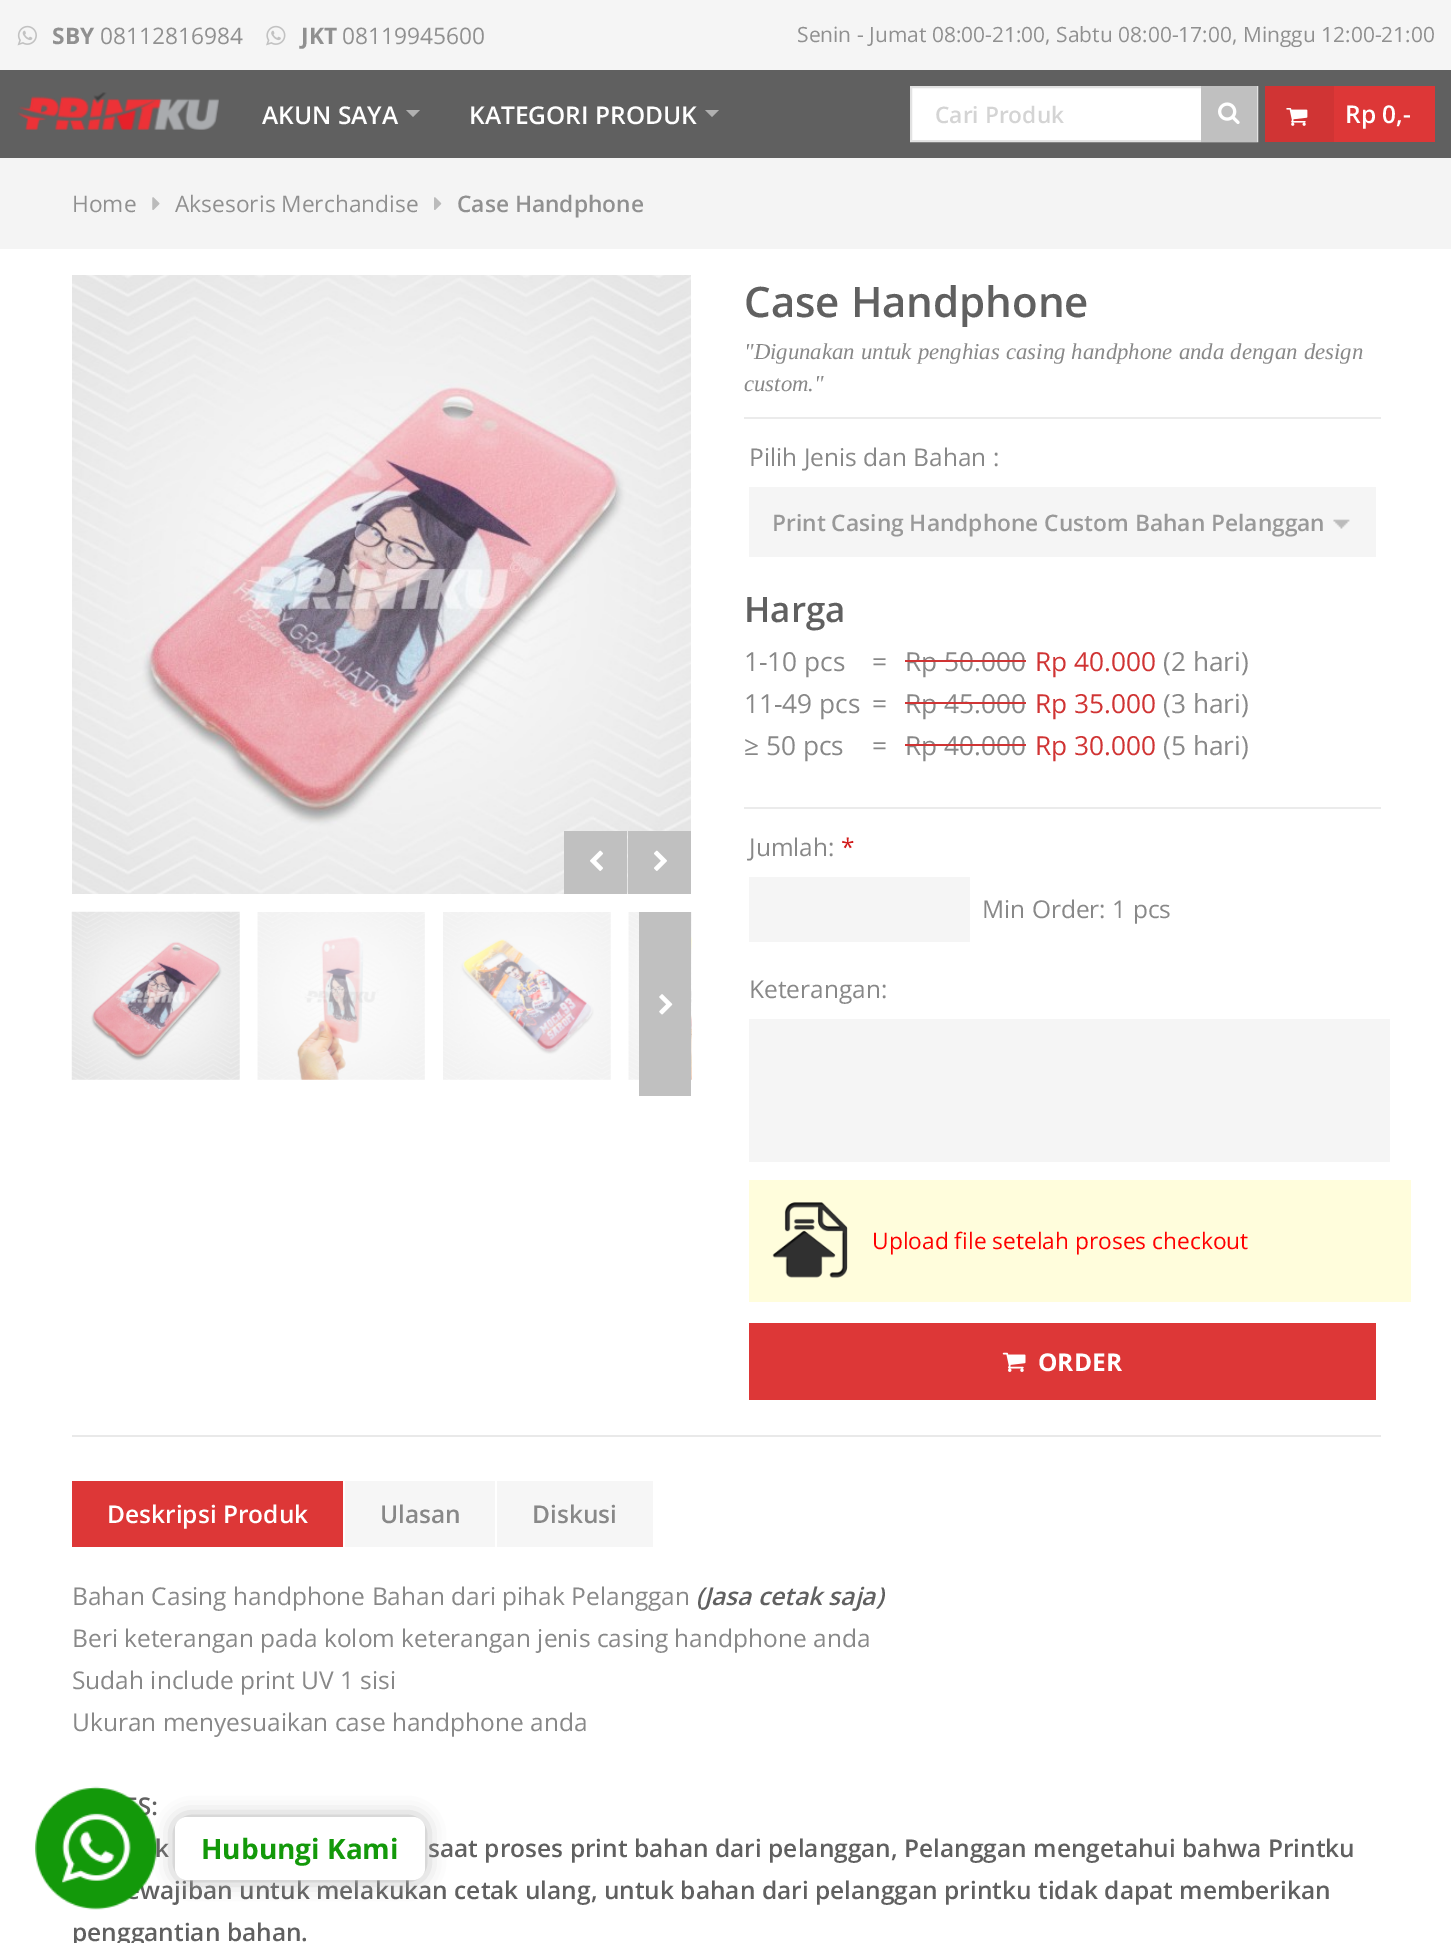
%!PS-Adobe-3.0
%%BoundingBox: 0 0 1451 1943
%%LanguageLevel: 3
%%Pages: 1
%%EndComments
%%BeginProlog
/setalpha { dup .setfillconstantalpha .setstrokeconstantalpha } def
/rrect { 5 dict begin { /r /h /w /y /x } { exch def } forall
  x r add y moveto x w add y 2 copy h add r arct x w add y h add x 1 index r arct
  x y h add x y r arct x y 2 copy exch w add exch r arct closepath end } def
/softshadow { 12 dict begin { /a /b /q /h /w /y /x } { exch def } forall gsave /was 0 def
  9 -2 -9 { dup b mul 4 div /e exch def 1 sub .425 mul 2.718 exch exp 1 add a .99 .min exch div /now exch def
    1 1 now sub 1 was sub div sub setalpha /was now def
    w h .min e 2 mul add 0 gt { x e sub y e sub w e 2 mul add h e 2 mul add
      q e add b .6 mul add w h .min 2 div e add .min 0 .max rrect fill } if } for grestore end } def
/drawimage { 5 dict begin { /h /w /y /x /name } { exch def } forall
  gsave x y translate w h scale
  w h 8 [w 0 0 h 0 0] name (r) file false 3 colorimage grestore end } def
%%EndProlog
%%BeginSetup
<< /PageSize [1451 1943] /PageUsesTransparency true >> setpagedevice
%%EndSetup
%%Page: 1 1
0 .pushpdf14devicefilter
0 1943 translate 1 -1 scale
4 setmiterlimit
1 setgray
0 0 1451 1943 rectfill
0.961 setgray
0 0 1451 70 rectfill
(images/1.raw) 17 25 20 21 drawimage
(images/2.raw) 266 25 20 21 drawimage
0.376 setgray
0 70 1451 88 rectfill
(images/3.raw) 17 92 202 38 drawimage
0.69 setgray
newpath 406 110 moveto 420 110 lineto 413 117 lineto closepath fill
newpath 705 110 moveto 719 110 lineto 712 117 lineto closepath fill
1 setgray
912 88 289 52 rectfill
0.886 setgray
2 setlinewidth
911 87 346 54 rectstroke
0.753 setgray
1201 86 56 56 rectfill
(images/4.raw) 1218 102 22 22 drawimage
0.867 0.216 0.216 setrgbcolor
1334 86 101 56 rectfill
0.816 0.204 0.204 setrgbcolor
1265 86 69 56 rectfill
(images/5.raw) 1286 108 22 18 drawimage
0.957 setgray
0 158 1451 91 rectfill
(images/6.raw) 152 197 8 13 drawimage
(images/7.raw) 434 197 8 13 drawimage
(images/8.raw) 72 275 619 619 drawimage
0.753 setgray
564 831 63 63 rectfill
(images/9.raw) 590 850 13 21 drawimage
628 831 63 63 rectfill
(images/10.raw) 654 850 13 21 drawimage
(images/11.raw) 71 911 169 169 drawimage
(images/12.raw) 257 912 168 168 drawimage
(images/13.raw) 443 912 168 168 drawimage
(images/14.raw) 628 912 64 168 drawimage
639 912 52 184 rectfill
(images/15.raw) 659 994 14 21 drawimage
0.922 setgray
744 417 637 2 rectfill
0.961 setgray
749 487 627 70 rectfill
(images/16.raw) 1333 519 17 10 drawimage
0.922 setgray
744 807 637 2 rectfill
0.961 setgray
749 877 221 65 rectfill
749 1019 641 143 rectfill
1 0.992 0.863 setrgbcolor
749 1180 662 122 rectfill
(images/17.raw) 772 1202 76 76 drawimage
0.867 0.216 0.216 setrgbcolor
749 1323 627 77 rectfill
(images/18.raw) 1002 1352 24 20 drawimage
0.914 setgray
72 1435 1309 2 rectfill
0.867 0.216 0.216 setrgbcolor
72 1481 271 66 rectfill
0.965 setgray
345 1481 150 66 rectfill
497 1481 156 66 rectfill
/OpenSans-Bold [22.75 0 0 -22.75 0 0] selectfont
0.565 setgray
52 44 moveto (SBY) show
/OpenSans-Regular [22.75 0 0 -22.75 0 0] selectfont
100 44 moveto (08112816984) show
/OpenSans-Bold [22.75 0 0 -22.75 0 0] selectfont
301 44 moveto (JKT) show
/OpenSans-Regular [22.75 0 0 -22.75 0 0] selectfont
342 44 moveto (08119945600) show
/OpenSans-Regular [21 0 0 -21 0 0] selectfont
797 42 moveto (Senin - Jumat 08:00-21:00, Sabtu 08:00-17:00, Minggu 12:00-21:00) show
/OpenSans-SemiBold [24.5 0 0 -24.5 0 0] selectfont
1 setgray
262 124 moveto (AKUN SAYA) show
469 124 moveto (KATEGORI PRODUK) show
/OpenSans-SemiBold [22.75 0 0 -22.75 0 0] selectfont
0.831 setgray
935 123 moveto (Cari Produk) show
/OpenSans-SemiBold [24.5 0 0 -24.5 0 0] selectfont
1 setgray
1345 123 moveto (Rp 0,-) show
/OpenSans-Regular [22.75 0 0 -22.75 0 0] selectfont
0.565 setgray
72 212 moveto (Home) show
175 212 moveto (Aksesoris Merchandise) show
/OpenSans-SemiBold [22.75 0 0 -22.75 0 0] selectfont
457 212 moveto (Case Handphone) show
/OpenSans-SemiBold [42 0 0 -42 0 0] selectfont
0.376 setgray
744 317 moveto (Case Handphone) show
/LiberationSerif-Italic [22.75 0 0 -22.75 0 0] selectfont
0.533 setgray
744 359 moveto 0.5 0 32 ("Digunakan untuk penghias casing handphone anda dengan design) widthshow
744 391 moveto (custom.") show
/OpenSans-Regular [24.5 0 0 -24.5 0 0] selectfont
749 466 moveto (Pilih Jenis dan Bahan :) show
/OpenSans-SemiBold [22.75 0 0 -22.75 0 0] selectfont
0.6 setgray
772 531 moveto (Print Casing Handphone Custom Bahan Pelanggan) show
/OpenSans-SemiBold [35 0 0 -35 0 0] selectfont
0.376 setgray
744 622 moveto (Harga) show
/OpenSans-Regular [26.25 0 0 -26.25 0 0] selectfont
0.533 setgray
744 671 moveto (1-10 pcs) show
872 671 moveto (=) show
905 671 moveto (Rp 50.000) show
0.816 0.204 0.204 setrgbcolor
905 660 121 2 rectfill
1035 671 moveto (Rp 40.000) show
0.533 setgray
1163 671 moveto (\(2 hari\)) show
744 713 moveto (11-49 pcs) show
872 713 moveto (=) show
905 713 moveto (Rp 45.000) show
0.816 0.204 0.204 setrgbcolor
905 702 121 2 rectfill
1035 713 moveto (Rp 35.000) show
0.533 setgray
1163 713 moveto (\(3 hari\)) show
744 755 moveto (≥ 50 pcs) show
872 755 moveto (=) show
905 755 moveto (Rp 40.000) show
0.816 0.204 0.204 setrgbcolor
905 744 121 2 rectfill
1035 755 moveto (Rp 30.000) show
0.533 setgray
1163 755 moveto (\(5 hari\)) show
/OpenSans-Regular [24.5 0 0 -24.5 0 0] selectfont
749 856 moveto (Jumlah:) show
0.82 0.11 0.11 setrgbcolor
841 856 moveto (*) show
0.533 setgray
982 918 moveto (Min Order: 1 pcs) show
749 998 moveto (Keterangan:) show
/OpenSans-Regular [22.75 0 0 -22.75 0 0] selectfont
1 0 0 setrgbcolor
872 1249 moveto (Upload file setelah proses checkout) show
/OpenSans-Bold [24.5 0 0 -24.5 0 0] selectfont
1 setgray
1038 1371 moveto (ORDER) show
/OpenSans-SemiBold [24.5 0 0 -24.5 0 0] selectfont
107 1523 moveto (Deskripsi Produk) show
0.533 setgray
380 1523 moveto (Ulasan) show
532 1523 moveto (Diskusi) show
/OpenSans-Regular [24.5 0 0 -24.5 0 0] selectfont
72 1605 moveto (Bahan Casing handphone Bahan dari pihak Pelanggan) show
/OpenSans-SemiBoldItalic [24.5 0 0 -24.5 0 0] selectfont
0.376 setgray
696 1605 moveto (\(Jasa cetak saja\)) show
/OpenSans-Regular [24.5 0 0 -24.5 0 0] selectfont
0.533 setgray
72 1647 moveto (Beri keterangan pada kolom keterangan jenis casing handphone anda) show
72 1689 moveto (Sudah include print UV 1 sisi) show
72 1731 moveto (Ukuran menyesuaikan case handphone anda) show
/OpenSans-SemiBold [24.5 0 0 -24.5 0 0] selectfont
0.376 setgray
138 1815 moveto (S:) show
155 1857 moveto (k) show
428 1857 moveto (saat proses print bahan dari pelanggan, Pelanggan mengetahui bahwa Printku) show
140 1899 moveto (wajiban untuk melakukan cetak ulang, untuk bahan dari pelanggan printku tidak dapat memberikan) show
72 1941 moveto (penggantian bahan.) show
(images/19.raw) 35 1786 123 124 drawimage
0.686 setgray
175 1817 250 63 12 9.5 1 softshadow
1 setgray
175 1817 250 63 12 rrect fill
/OpenSans-Bold [28 0 0 -28 0 0] selectfont
0.075 0.6 0.039 setrgbcolor
201 1859 moveto (Hubungi Kami) show
.poppdf14devicefilter showpage
%%EOF
